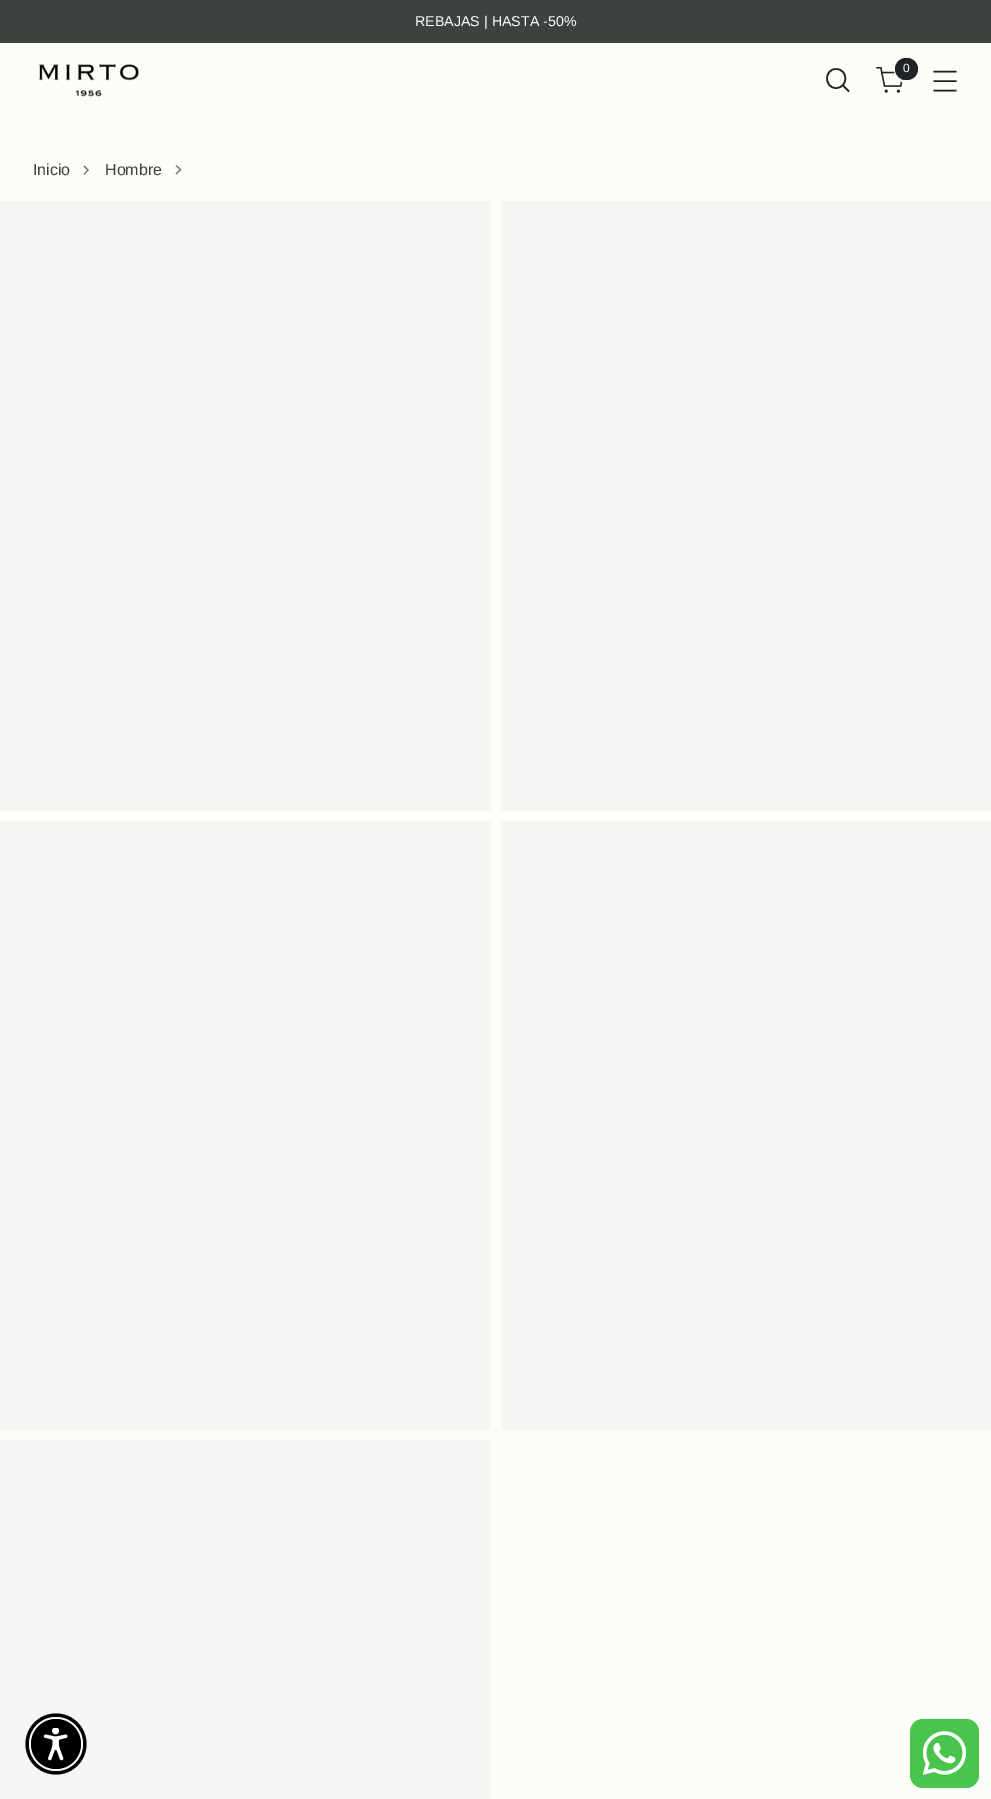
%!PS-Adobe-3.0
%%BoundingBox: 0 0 991 1799
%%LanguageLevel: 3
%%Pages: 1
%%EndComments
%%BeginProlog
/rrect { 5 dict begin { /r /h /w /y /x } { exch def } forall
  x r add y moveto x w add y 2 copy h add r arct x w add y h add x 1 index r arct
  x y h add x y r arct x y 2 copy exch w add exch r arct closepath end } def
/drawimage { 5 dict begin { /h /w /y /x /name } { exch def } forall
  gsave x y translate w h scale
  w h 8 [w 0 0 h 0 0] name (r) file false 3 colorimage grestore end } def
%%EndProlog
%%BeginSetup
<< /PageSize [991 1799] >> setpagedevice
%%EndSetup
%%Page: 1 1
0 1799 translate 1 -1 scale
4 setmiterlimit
0.988 0.988 0.976 setrgbcolor
0 0 991 1799 rectfill
0.239 0.259 0.251 setrgbcolor
0 0 991 43 rectfill
(images/1.raw) 38 63 101 34 drawimage
0.125 0.137 0.145 setrgbcolor
1.6 setlinewidth
1 setlinecap
newpath 836 88 moveto 848.5 88 848.5 69 836 69 curveto 824 69 824 88 836 88 curveto closepath stroke
0 setlinecap
newpath 843 85.5 moveto 849 91.5 lineto stroke
(images/2.raw) 876 67 27 26 drawimage
0.988 0.988 0.976 setrgbcolor
2 setlinewidth
895 57 24 25 12 rrect stroke
0.125 0.137 0.145 setrgbcolor
895 58 23 22 11 rrect fill
1.6 setlinewidth
newpath 933.5 81 moveto 956.5 81 lineto 933.5 71.5 moveto 956.5 71.5 lineto 933.5 90.5 moveto 956.5 90.5 lineto stroke
0.471 0.478 0.478 setrgbcolor
1.1 setlinewidth
newpath 84 174.5 moveto 88 170 lineto 84 166 lineto stroke
newpath 176 174 moveto 180.5 169.5 lineto 176 165.5 lineto stroke
0.961 setgray
0 201 491 610 rectfill
501 201 490 610 rectfill
0 821 491 609 rectfill
501 821 490 609 rectfill
0 1440 491 359 rectfill
0.286 0.773 0.302 setrgbcolor
910 1719 69 69 13 rrect fill
(images/3.raw) 923 1731 43 44 drawimage
0 setgray
newpath 56 1744 30.5 0 360 arc closepath fill
1 setgray
newpath 56 1744 27 0 360 arc closepath fill
0 setgray
newpath 56 1744 25 0 360 arc closepath fill
(images/4.raw) 43 1728 25 33 drawimage
/LiberationSans-Regular [14.25 0 0 -14.25 0 0] selectfont
0.988 0.988 0.976 setrgbcolor
415 26 moveto (REBAJAS | HASTA -50%) show
/LiberationSans-Regular [12 0 0 -12 0 0] selectfont
903 72 moveto (0) show
/LiberationSans-Regular [16 0 0 -16 0 0] selectfont
0.239 0.259 0.251 setrgbcolor
33 175 moveto (Inicio) show
105 175 moveto (Hombre) show
showpage
%%EOF
